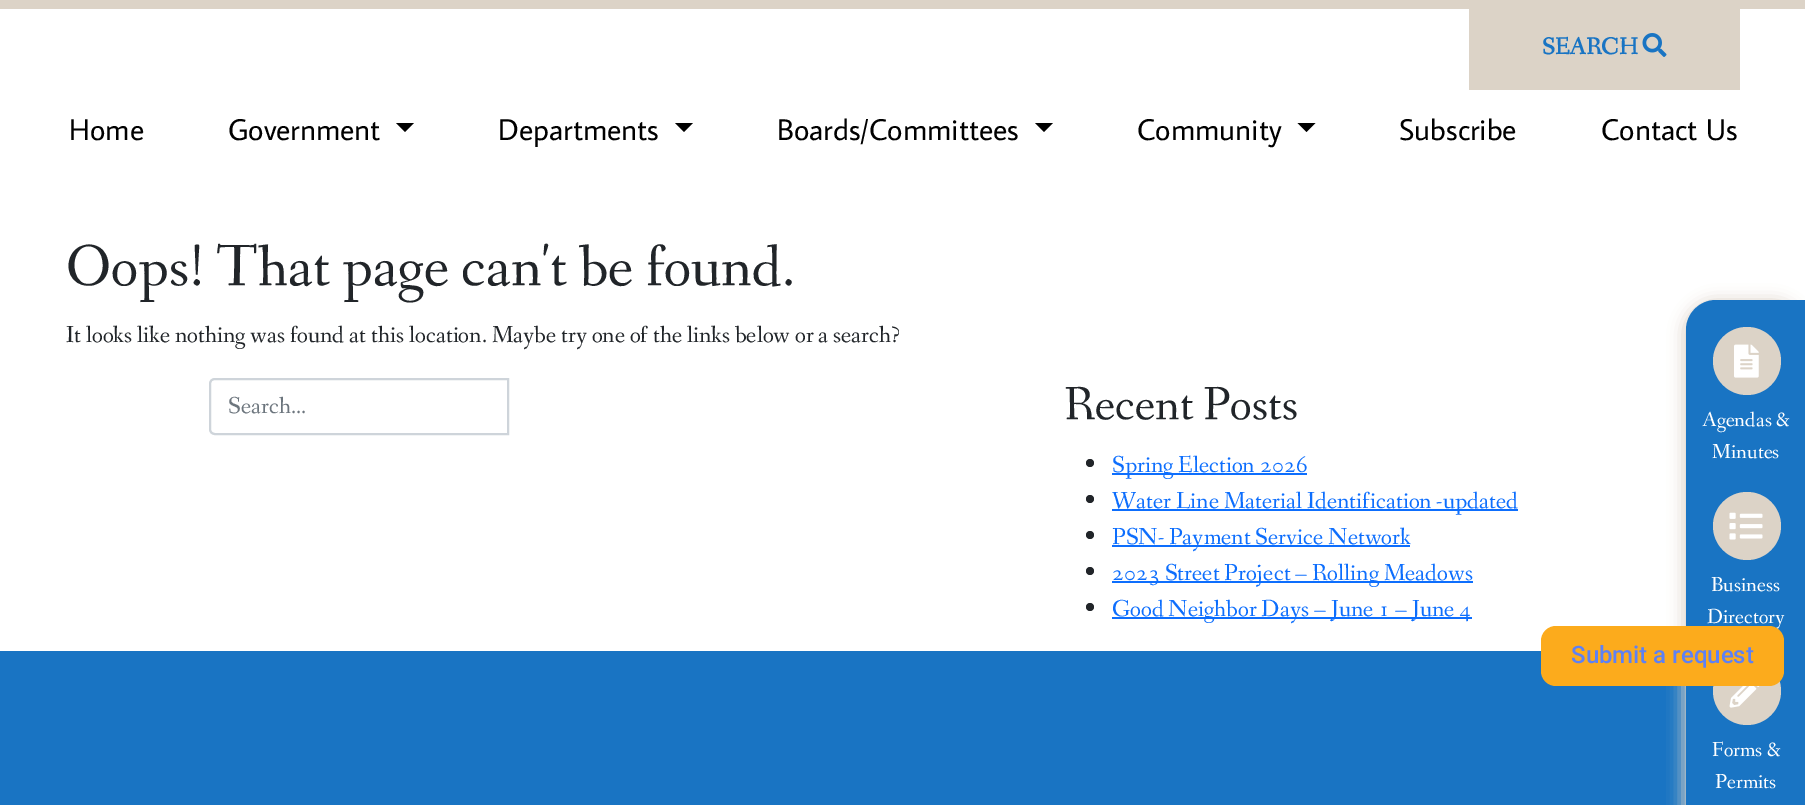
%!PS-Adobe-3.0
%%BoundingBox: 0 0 1805 805
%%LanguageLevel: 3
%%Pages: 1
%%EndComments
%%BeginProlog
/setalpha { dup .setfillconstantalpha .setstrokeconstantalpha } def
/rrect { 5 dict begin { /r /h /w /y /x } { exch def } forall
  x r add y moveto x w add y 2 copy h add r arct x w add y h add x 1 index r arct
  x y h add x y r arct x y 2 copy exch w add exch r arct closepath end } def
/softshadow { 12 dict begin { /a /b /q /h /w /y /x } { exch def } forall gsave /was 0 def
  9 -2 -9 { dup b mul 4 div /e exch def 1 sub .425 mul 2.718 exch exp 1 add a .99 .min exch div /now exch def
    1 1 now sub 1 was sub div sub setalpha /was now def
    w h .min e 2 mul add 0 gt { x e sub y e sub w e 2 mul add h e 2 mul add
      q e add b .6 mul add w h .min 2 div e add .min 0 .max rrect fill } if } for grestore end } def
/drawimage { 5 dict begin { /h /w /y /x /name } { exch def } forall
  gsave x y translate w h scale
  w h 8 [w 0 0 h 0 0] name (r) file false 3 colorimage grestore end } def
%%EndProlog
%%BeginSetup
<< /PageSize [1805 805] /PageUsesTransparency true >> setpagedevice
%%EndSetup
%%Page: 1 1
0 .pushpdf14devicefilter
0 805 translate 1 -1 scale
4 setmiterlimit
1 setgray
0 0 1805 805 rectfill
0.863 0.827 0.78 setrgbcolor
0 0 1805 9 rectfill
1469 9 271 81 rectfill
(images/1.raw) 1642 33 25 24 drawimage
0 setgray
newpath 396 123 moveto 414 123 lineto 405 132 lineto closepath fill
newpath 675 123 moveto 693 123 lineto 684 132 lineto closepath fill
newpath 1035 123 moveto 1053 123 lineto 1044 132 lineto closepath fill
newpath 1297.5 123 moveto 1315.5 123 lineto 1306.5 132 lineto closepath fill
0.098 0.455 0.765 setrgbcolor
0 651 1686 154 rectfill
0.863 0.827 0.78 setrgbcolor
1683 300 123 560 32 7.5 1 softshadow
0.098 0.455 0.765 setrgbcolor
newpath 1716 300 moveto 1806 300 lineto 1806 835 lineto 1716 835 lineto 1699.5 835 1686 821.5 1686 805 curveto 1686 330 lineto 1686 313.5 1699.5 300 1716 300 curveto closepath fill
0.863 0.827 0.78 setrgbcolor
newpath 1747 361 34 0 360 arc closepath fill
(images/2.raw) 1734 344 25 34 drawimage
newpath 1747 526 34 0 360 arc closepath fill
(images/3.raw) 1729 512 34 28 drawimage
newpath 1747 691 34 0 360 arc closepath fill
(images/4.raw) 1729 686 31 22 drawimage
0.808 0.831 0.855 setrgbcolor
2 setlinewidth
newpath 215 379 moveto 508 379 lineto 508 434 lineto 215 434 lineto 212 434 210 432 210 429 curveto 210 384 lineto 210 381 212 379 215 379 curveto closepath stroke
0.129 0.145 0.161 setrgbcolor
newpath 1090 463 4 0 360 arc closepath fill
0.051 0.431 0.992 setrgbcolor
1112 473 195 2 rectfill
0.129 0.145 0.161 setrgbcolor
newpath 1090 499 4 0 360 arc closepath fill
0.051 0.431 0.992 setrgbcolor
1112 509 406 2 rectfill
0.129 0.145 0.161 setrgbcolor
newpath 1090 535 4 0 360 arc closepath fill
0.051 0.431 0.992 setrgbcolor
1112 545 298 2 rectfill
0.129 0.145 0.161 setrgbcolor
newpath 1090 571 4 0 360 arc closepath fill
0.051 0.431 0.992 setrgbcolor
1112 581 361 2 rectfill
0.129 0.145 0.161 setrgbcolor
newpath 1090 607 4 0 360 arc closepath fill
0.051 0.431 0.992 setrgbcolor
1112 617 360 2 rectfill
/FanwoodText-Bold [24 0 0 -24 0 0] selectfont
0.098 0.455 0.765 setrgbcolor
1542 54 moveto (SEARCH) show
/AverageSans-Regular [30 0 0 -30 0 0] selectfont
0 setgray
69 140 moveto (Home) show
228 140 moveto (Government) show
498 140 moveto (Departments) show
777 140 moveto (Boards/Committees) show
1137 140 moveto (Community) show
1399 140 moveto (Subscribe) show
1601 140 moveto (Contact Us) show
/FanwoodText-Regular [21 0 0 -21 0 0] selectfont
1 setgray
1702 426 moveto (Agendas &) show
1712 458 moveto (Minutes) show
1711 591 moveto (Business) show
1707 623 moveto (Directory) show
1712 756 moveto (Forms &) show
1715 788 moveto (Permits) show
/FanwoodText-Regular [60 0 0 -60 0 0] selectfont
0.129 0.145 0.161 setrgbcolor
66 285 moveto (Oops! That page can't be found.) show
/FanwoodText-Regular [24 0 0 -24 0 0] selectfont
66 342 moveto (It looks like nothing was found at this location. Maybe try one of the links below or a search?) show
0.424 0.459 0.49 setrgbcolor
228 413 moveto (Search...) show
/FanwoodText-Regular [48 0 0 -48 0 0] selectfont
0.129 0.145 0.161 setrgbcolor
1064 419 moveto (Recent Posts) show
/FanwoodText-Regular [24 0 0 -24 0 0] selectfont
0.051 0.431 0.992 setrgbcolor
1112 472 moveto (Spring Election 2026) show
1112 508 moveto (Water Line Material Identification -updated) show
1112 544 moveto (PSN- Payment Service Network) show
1112 580 moveto (2023 Street Project – Rolling Meadows) show
1112 616 moveto (Good Neighbor Days – June 1 – June 4) show
0.988 0.671 0.11 setrgbcolor
1541 626 243 60 15 rrect fill
/Roboto-Medium [24 0 0 -24 0 0] selectfont
0.369 0.506 0.957 setrgbcolor
1571 663 moveto (Submit a request) show
.poppdf14devicefilter showpage
%%EOF
